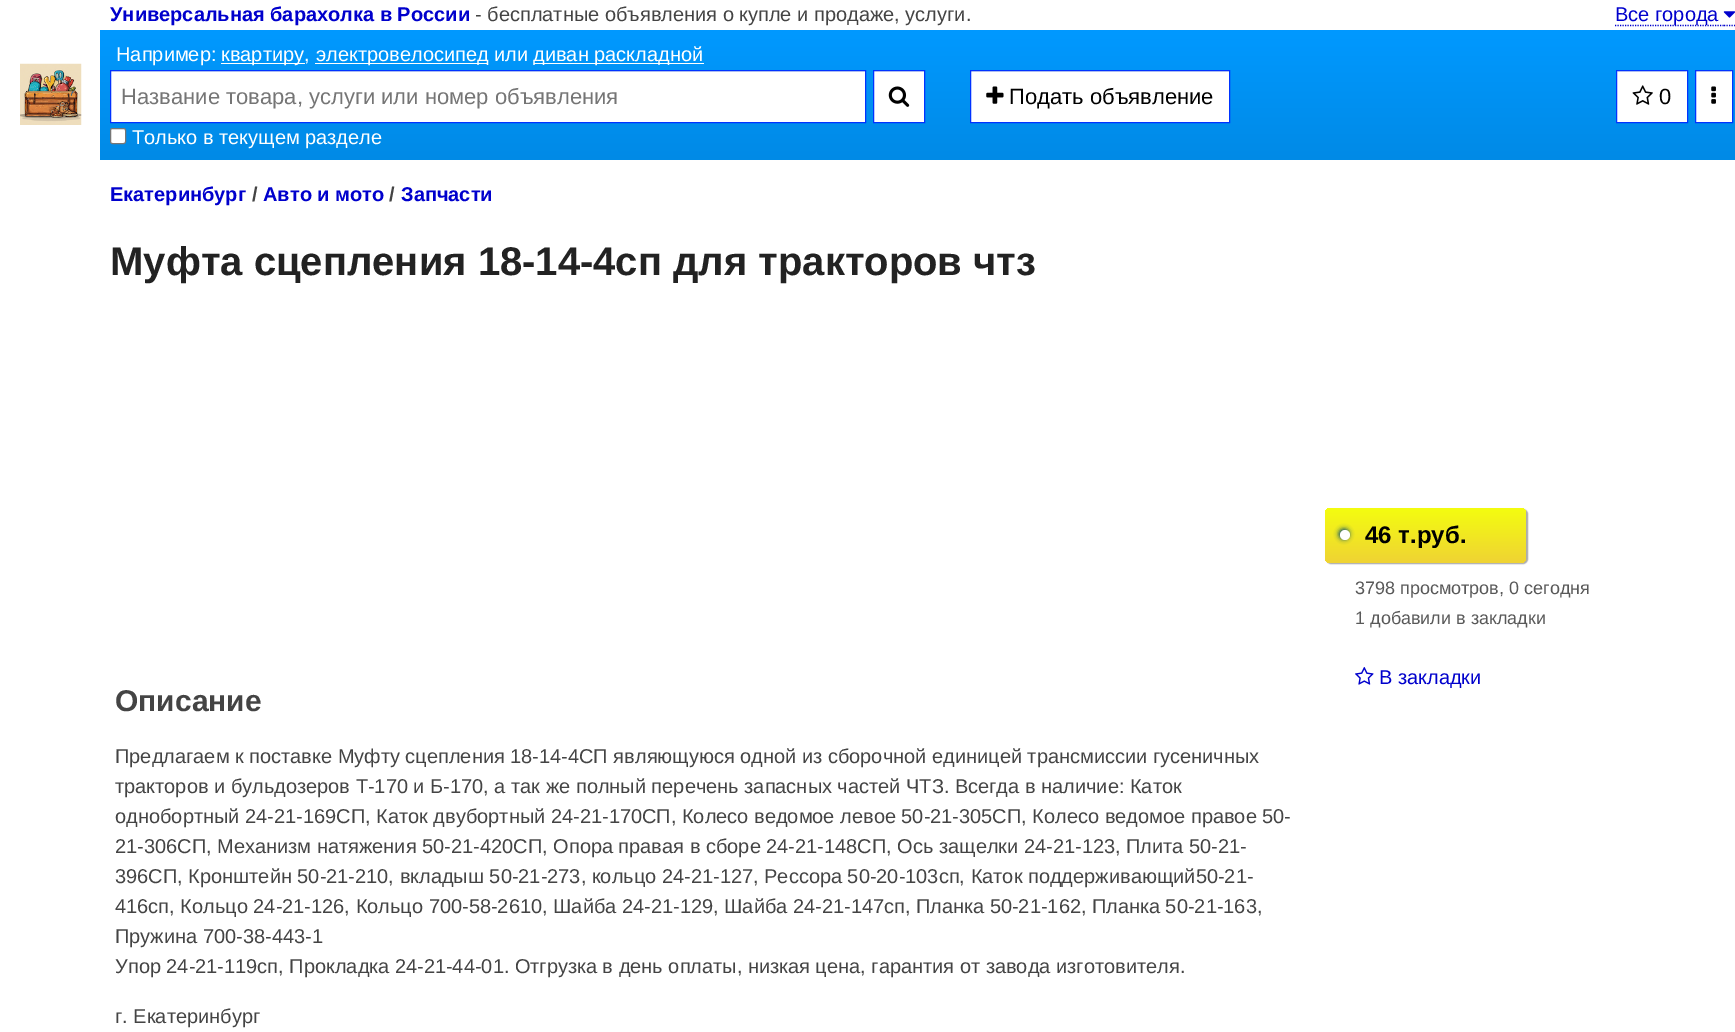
%!PS-Adobe-3.0
%%BoundingBox: 0 0 1735 1032
%%LanguageLevel: 3
%%Pages: 1
%%EndComments
%%BeginProlog
/setalpha { dup .setfillconstantalpha .setstrokeconstantalpha } def
/rrect { 5 dict begin { /r /h /w /y /x } { exch def } forall
  x r add y moveto x w add y 2 copy h add r arct x w add y h add x 1 index r arct
  x y h add x y r arct x y 2 copy exch w add exch r arct closepath end } def
/softshadow { 12 dict begin { /a /b /q /h /w /y /x } { exch def } forall gsave /was 0 def
  9 -2 -9 { dup b mul 4 div /e exch def 1 sub .425 mul 2.718 exch exp 1 add a .99 .min exch div /now exch def
    1 1 now sub 1 was sub div sub setalpha /was now def
    w h .min e 2 mul add 0 gt { x e sub y e sub w e 2 mul add h e 2 mul add
      q e add b .6 mul add w h .min 2 div e add .min 0 .max rrect fill } if } for grestore end } def
/drawimage { 5 dict begin { /h /w /y /x /name } { exch def } forall
  gsave x y translate w h scale
  w h 8 [w 0 0 h 0 0] name (r) file false 3 colorimage grestore end } def
%%EndProlog
%%BeginSetup
<< /PageSize [1735 1032] /PageUsesTransparency true >> setpagedevice
%%EndSetup
%%Page: 1 1
0 .pushpdf14devicefilter
0 1032 translate 1 -1 scale
4 setmiterlimit
1 setgray
0 0 1735 1032 rectfill
0 0 0.8 setrgbcolor
1.2 setlinewidth
[1.25 1.25] 0 setdash
newpath 1615 25.5 moveto 1724 25.5 lineto stroke
newpath 1724 25.5 moveto 1735 25.5 lineto stroke
(images/1.raw) 1723 11 12 7 drawimage
gsave newpath 100 30 moveto 1735 30 lineto 1735 160 lineto 100 160 lineto closepath clip newpath
<< /ShadingType 2 /ColorSpace /DeviceRGB /Coords [0 30 0 160] /Extend [true true] /Function << /FunctionType 2 /Domain [0 1] /C0 [0 0.6 1] /C1 [0 0.541 0.902] /N 1 >> >> shfill grestore
(images/2.raw) 20 63 62 62 drawimage
1 setgray
221 63 84 1 rectfill
315 63 173 1 rectfill
534 63 170 1 rectfill
111 72 754 50 rectfill
0.925 setgray
111 71 754 1 rectfill
0 0.2 1 setrgbcolor
1 setlinewidth
[] 0 setdash
110.5 70.5 755 52 rectstroke
1 setgray
874 72 50 50 rectfill
0.925 setgray
874 71 50 1 rectfill
0 0.2 1 setrgbcolor
873.5 70.5 51 52 rectstroke
(images/3.raw) 888 86 22 21 drawimage
1 setgray
110.5 128.5 15 15 2 rrect gsave fill grestore
0.463 setgray
stroke
1 setgray
971 72 258 50 rectfill
0.925 setgray
971 71 258 1 rectfill
0 0.2 1 setrgbcolor
970.5 70.5 259 52 rectstroke
(images/4.raw) 986 86 18 18 drawimage
1 setgray
1617 71 70 51 rectfill
0.925 setgray
1618 71 68 1 rectfill
0 0.2 1 setrgbcolor
1616.5 70.5 71 52 rectstroke
(images/5.raw) 1632 85 21 20 drawimage
1 setgray
1696 71 36 51 rectfill
0.925 setgray
1696 71 35 1 rectfill
0 0.2 1 setrgbcolor
1695.5 70.5 37 52 rectstroke
(images/6.raw) 1711 86 5 18 drawimage
0.667 setgray
1326 509 202 55 5 0.5 1 softshadow
gsave 1325 508 201 55 5 rrect clip newpath
<< /ShadingType 2 /ColorSpace /DeviceRGB /Coords [1325 508 1325 563] /Extend [true true] /Function << /FunctionType 2 /Domain [0 1] /C0 [0.957 0.992 0.059] /C1 [0.937 0.827 0.204] /N 1 >> >> shfill grestore
0 0.286 0.467 setrgbcolor
1339 529 10 10 5 2.5 1 softshadow
1 setgray
newpath 1345 535 5 0 360 arc closepath fill
(images/7.raw) 1355 667 19 18 drawimage
/LiberationSans-Bold [20 0 0 -20 0 0] selectfont
0 0 0.8 setrgbcolor
110 21 moveto (Универсальная барахолка в России) show
/LiberationSans-Regular [20 0 0 -20 0 0] selectfont
0.267 setgray
475 21 moveto (- бесплатные объявления о купле и продаже, услуги.) show
0 0 0.8 setrgbcolor
1615 21 moveto (Все города) show
1 setgray
116 61 moveto (Например:) show
221 61 moveto (квартиру,) show
316 61 moveto (электровелосипед или) show
533 61 moveto (диван раскладной) show
/LiberationSans-Regular [22 0 0 -22 0 0] selectfont
0.459 setgray
121 104 moveto (Название товара, услуги или номер объявления) show
/LiberationSans-Regular [20 0 0 -20 0 0] selectfont
1 setgray
132 144 moveto (Только в текущем разделе) show
/LiberationSans-Regular [22 0 0 -22 0 0] selectfont
0 setgray
1009 104 moveto (Подать объявление) show
1659 104 moveto (0) show
/LiberationSans-Bold [20 0 0 -20 0 0] selectfont
0 0 0.8 setrgbcolor
110 201 moveto (Екатеринбург) show
0.267 setgray
252 201 moveto (/) show
0 0 0.8 setrgbcolor
263 201 moveto (Авто и мото) show
0.267 setgray
389 201 moveto (/) show
0 0 0.8 setrgbcolor
401 201 moveto (Запчасти) show
/LiberationSans-Bold [40 0 0 -40 0 0] selectfont
0.133 setgray
110 275 moveto (Муфта сцепления 18-14-4сп для тракторов чтз) show
/LiberationSans-Bold [24 0 0 -24 0 0] selectfont
0 setgray
1365 543 moveto (46 т.руб.) show
/LiberationSans-Regular [18 0 0 -18 0 0] selectfont
0.349 setgray
1355 594 moveto (3798 просмотров, 0 сегодня) show
1355 624 moveto (1 добавили в закладки) show
/LiberationSans-Regular [20 0 0 -20 0 0] selectfont
0 0 0.8 setrgbcolor
1379 684 moveto (В закладки) show
/LiberationSans-Bold [30 0 0 -30 0 0] selectfont
0.267 setgray
115 711 moveto (Описание) show
/LiberationSans-Regular [20 0 0 -20 0 0] selectfont
115 763 moveto (Предлагаем к поставке Муфту сцепления 18-14-4СП являющуюся одной из сборочной единицей трансмиссии гусеничных) show
115 793 moveto (тракторов и бульдозеров Т-170 и Б-170, а так же полный перечень запасных частей ЧТЗ. Всегда в наличие: Каток) show
115 823 moveto (однобортный 24-21-169СП, Каток двубортный 24-21-170СП, Колесо ведомое левое 50-21-305СП, Колесо ведомое правое 50-) show
115 853 moveto (21-306СП, Механизм натяжения 50-21-420СП, Опора правая в сборе 24-21-148СП, Ось защелки 24-21-123, Плита 50-21-) show
115 883 moveto (396СП, Кронштейн 50-21-210, вкладыш 50-21-273, кольцо 24-21-127, Рессора 50-20-103сп, Каток поддерживающий50-21-) show
115 913 moveto (416сп, Кольцо 24-21-126, Кольцо 700-58-2610, Шайба 24-21-129, Шайба 24-21-147сп, Планка 50-21-162, Планка 50-21-163,) show
115 943 moveto (Пружина 700-38-443-1) show
115 973 moveto (Упор 24-21-119сп, Прокладка 24-21-44-01. Отгрузка в день оплаты, низкая цена, гарантия от завода изготовителя.) show
115 1023 moveto (г. Екатеринбург) show
.poppdf14devicefilter showpage
%%EOF
